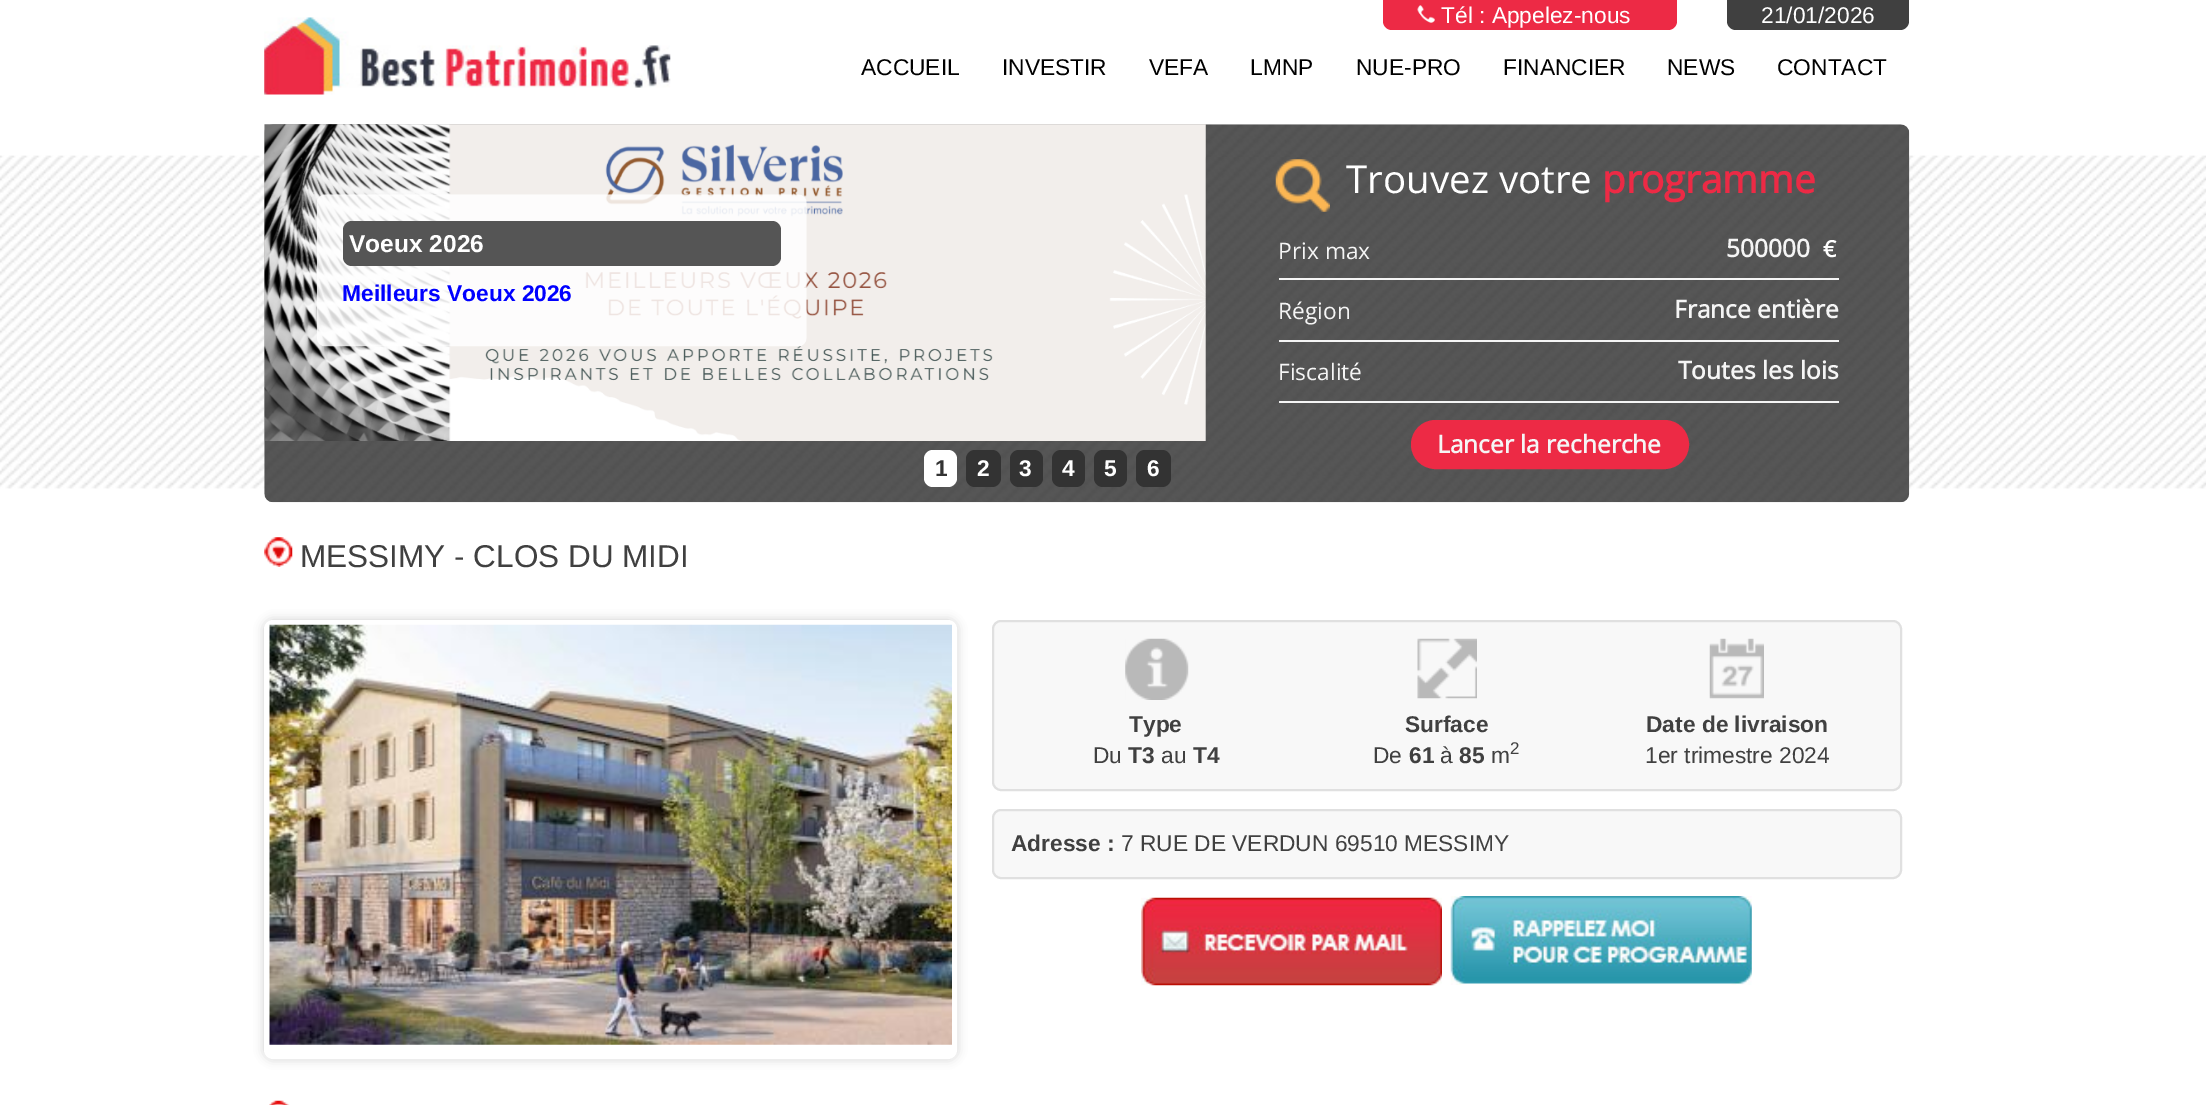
%!PS-Adobe-3.0
%%BoundingBox: 0 0 2206 1105
%%LanguageLevel: 3
%%Pages: 1
%%EndComments
%%BeginProlog
/setalpha { dup .setfillconstantalpha .setstrokeconstantalpha } def
/rrect { 5 dict begin { /r /h /w /y /x } { exch def } forall
  x r add y moveto x w add y 2 copy h add r arct x w add y h add x 1 index r arct
  x y h add x y r arct x y 2 copy exch w add exch r arct closepath end } def
/softshadow { 12 dict begin { /a /b /q /h /w /y /x } { exch def } forall gsave /was 0 def
  9 -2 -9 { dup b mul 4 div /e exch def 1 sub .425 mul 2.718 exch exp 1 add a .99 .min exch div /now exch def
    1 1 now sub 1 was sub div sub setalpha /was now def
    w h .min e 2 mul add 0 gt { x e sub y e sub w e 2 mul add h e 2 mul add
      q e add b .6 mul add w h .min 2 div e add .min 0 .max rrect fill } if } for grestore end } def
/drawimage { 5 dict begin { /h /w /y /x /name } { exch def } forall
  gsave x y translate w h scale
  w h 8 [w 0 0 h 0 0] name (r) file false 3 colorimage grestore end } def
%%EndProlog
%%BeginSetup
<< /PageSize [2206 1105] /PageUsesTransparency true >> setpagedevice
%%EndSetup
%%Page: 1 1
0 .pushpdf14devicefilter
0 1105 translate 1 -1 scale
4 setmiterlimit
1 setgray
0 0 2206 1105 rectfill
(images/1.raw) 0 155 2206 334 drawimage
(images/2.raw) 264 17 407 78 drawimage
0.929 0.165 0.271 setrgbcolor
newpath 1383 0 moveto 1677 0 lineto 1677 21 lineto 1677 26 1673 30 1668 30 curveto 1392 30 lineto 1387 30 1383 26 1383 21 curveto closepath fill
(images/3.raw) 1417 5 18 18 drawimage
0.251 setgray
newpath 1727 0 moveto 1909 0 lineto 1909 21 lineto 1909 26 1905 30 1900 30 curveto 1736 30 lineto 1731 30 1727 26 1727 21 curveto closepath fill
(images/4.raw) 264 124 1646 379 drawimage
(images/5.raw) 264 124 942 317 drawimage
(images/6.raw) 316 194 491 153 drawimage
0.333 setgray
343 221 438 45 9 rrect fill
1 setgray
924 450 33 37 9 rrect fill
0.2 setgray
966 450 35 37 9 rrect fill
1010 450 33 37 9 rrect fill
1052 450 33 37 9 rrect fill
1094 450 33 37 9 rrect fill
1136 450 35 37 9 rrect fill
(images/7.raw) 1205 157 705 319 drawimage
(images/8.raw) 1275 159 55 53 drawimage
0.961 setgray
1279 278 560 2 rectfill
1279 340 560 2 rectfill
1279 401 560 2 rectfill
0.929 0.165 0.271 setrgbcolor
1412 421 276 47 23.5 rrect gsave fill grestore
2 setlinewidth
stroke
(images/9.raw) 264 537 29 30 drawimage
gsave
newpath 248 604 moveto 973 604 lineto 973 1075 lineto 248 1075 lineto closepath 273 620 moveto 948 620 lineto 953 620 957 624 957 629 curveto 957 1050 lineto 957 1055 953 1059 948 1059 curveto 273 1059 lineto 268 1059 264 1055 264 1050 curveto 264 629 lineto 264 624 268 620 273 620 curveto closepath eoclip newpath
0.8 setgray
264 620 693 439 9 5 1 softshadow
grestore
1 setgray
5 setlinewidth
266.5 622.5 688 434 6.5 rrect stroke
(images/10.raw) 269 624 683 421 drawimage
0.973 setgray
993 621 908 169 8 rrect gsave fill grestore
0.878 setgray
2 setlinewidth
stroke
(images/11.raw) 1125 638 64 62 drawimage
(images/12.raw) 1417 638 60 61 drawimage
(images/13.raw) 1709 638 55 61 drawimage
0.973 setgray
993 810 908 68 8 rrect gsave fill grestore
0.878 setgray
stroke
(images/14.raw) 1141 897 301 89 drawimage
(images/15.raw) 1450 896 302 89 drawimage
(images/16.raw) 269 1100 21 5 drawimage
/LiberationSans-Regular [22.75 0 0 -22.75 0 0] selectfont
1 setgray
1441 23 moveto (Tél : Appelez-nous) show
1761 23 moveto (21/01/2026) show
0 setgray
861 75 moveto (ACCUEIL) show
1002 75 moveto (INVESTIR) show
1149 75 moveto (VEFA) show
1250 75 moveto (LMNP) show
1356 75 moveto (NUE-PRO) show
1503 75 moveto (FINANCIER) show
1667 75 moveto (NEWS) show
1777 75 moveto (CONTACT) show
/LiberationSans-Bold [24.5 0 0 -24.5 0 0] selectfont
1 setgray
349 252 moveto (Voeux 2026) show
/LiberationSans-Bold [22.75 0 0 -22.75 0 0] selectfont
0 0 1 setrgbcolor
342 301 moveto (Meilleurs Voeux 2026) show
0.2 setgray
935 476 moveto (1) show
1 setgray
977 476 moveto (2) show
1019 476 moveto (3) show
1062 476 moveto (4) show
1104 476 moveto (5) show
1147 476 moveto (6) show
/OpenSans-Regular [38.5 0 0 -38.5 0 0] selectfont
1346 193 moveto (Trouvez votre) show
/OpenSans-Bold [38.5 0 0 -38.5 0 0] selectfont
0.929 0.165 0.271 setrgbcolor
1602 193 moveto (programme) show
/OpenSans-Regular [22.75 0 0 -22.75 0 0] selectfont
0.961 setgray
1278 259 moveto (Prix max) show
/OpenSans-Bold [24.5 0 0 -24.5 0 0] selectfont
1726 257 moveto (500000) show
/OpenSans-Bold [22.75 0 0 -22.75 0 0] selectfont
1 setgray
1823 257 moveto (€) show
/OpenSans-Regular [22.75 0 0 -22.75 0 0] selectfont
0.961 setgray
1278 319 moveto (Région) show
/OpenSans-Bold [24.5 0 0 -24.5 0 0] selectfont
1674 318 moveto (France entière) show
/OpenSans-Regular [22.75 0 0 -22.75 0 0] selectfont
1278 380 moveto (Fiscalité) show
/OpenSans-Bold [24.5 0 0 -24.5 0 0] selectfont
1678 379 moveto (Toutes les lois) show
1437 453 moveto (Lancer la recherche) show
/LiberationSans-Regular [31.5 0 0 -31.5 0 0] selectfont
0.251 setgray
300 567 moveto (MESSIMY - CLOS DU MIDI) show
/LiberationSans-Bold [22.75 0 0 -22.75 0 0] selectfont
1129 732 moveto (Type) show
/LiberationSans-Regular [22.75 0 0 -22.75 0 0] selectfont
1093 763 moveto (Du) show
/LiberationSans-Bold [22.75 0 0 -22.75 0 0] selectfont
1128 763 moveto (T3) show
/LiberationSans-Regular [22.75 0 0 -22.75 0 0] selectfont
1161 763 moveto (au) show
/LiberationSans-Bold [22.75 0 0 -22.75 0 0] selectfont
1193 763 moveto (T4) show
1405 732 moveto (Surface) show
/LiberationSans-Regular [22.75 0 0 -22.75 0 0] selectfont
1373 763 moveto (De) show
/LiberationSans-Bold [22.75 0 0 -22.75 0 0] selectfont
1409 763 moveto (61) show
/LiberationSans-Regular [22.75 0 0 -22.75 0 0] selectfont
1440 763 moveto (à) show
/LiberationSans-Bold [22.75 0 0 -22.75 0 0] selectfont
1459 763 moveto (85) show
/LiberationSans-Regular [22.75 0 0 -22.75 0 0] selectfont
1491 763 moveto (m) show
/LiberationSans-Regular [17 0 0 -17 0 0] selectfont
1510 754 moveto (2) show
/LiberationSans-Bold [22.75 0 0 -22.75 0 0] selectfont
1646 732 moveto (Date de livraison) show
/LiberationSans-Regular [22.75 0 0 -22.75 0 0] selectfont
1645 763 moveto (1er trimestre 2024) show
/LiberationSans-Bold [22.75 0 0 -22.75 0 0] selectfont
1011 851 moveto (Adresse :) show
/LiberationSans-Regular [22.75 0 0 -22.75 0 0] selectfont
1121 851 moveto (7 RUE DE VERDUN 69510 MESSIMY) show
.poppdf14devicefilter showpage
%%EOF
